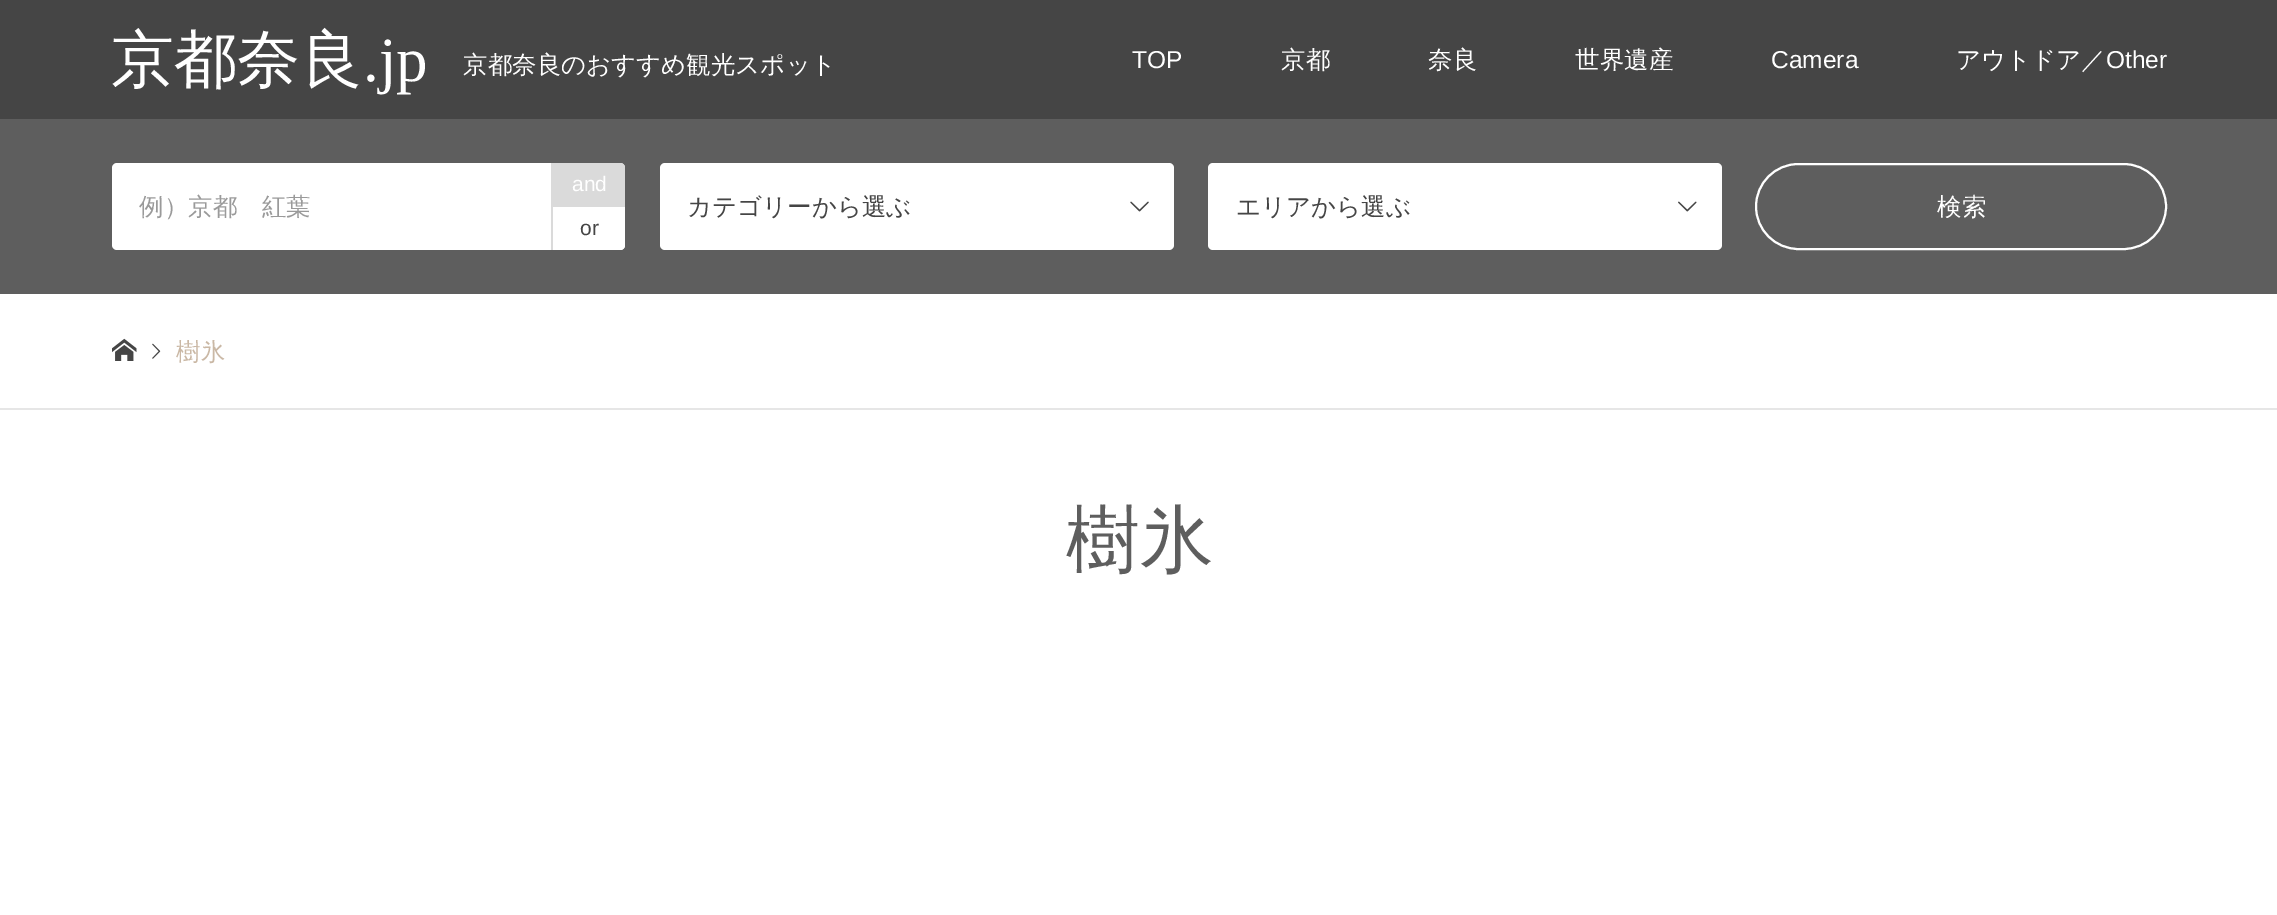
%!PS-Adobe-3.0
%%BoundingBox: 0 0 2277 915
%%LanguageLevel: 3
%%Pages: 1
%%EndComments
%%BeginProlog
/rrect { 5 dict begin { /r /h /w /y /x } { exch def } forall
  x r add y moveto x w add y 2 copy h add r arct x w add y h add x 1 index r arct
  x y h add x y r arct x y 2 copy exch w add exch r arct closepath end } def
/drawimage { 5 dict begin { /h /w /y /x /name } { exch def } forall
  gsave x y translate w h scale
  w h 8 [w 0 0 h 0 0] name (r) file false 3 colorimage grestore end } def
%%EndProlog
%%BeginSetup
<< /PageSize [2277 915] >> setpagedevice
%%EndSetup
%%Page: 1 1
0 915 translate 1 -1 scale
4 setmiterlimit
1 setgray
0 0 2277 915 rectfill
0.271 setgray
0 0 2277 119 rectfill
0.369 setgray
0 119 2277 175 rectfill
1 setgray
112 163 513 87 5 rrect fill
0.855 setgray
newpath 551 163 moveto 620 163 lineto 623 163 625 165 625 168 curveto 625 207 lineto 551 207 lineto closepath fill
1 setgray
newpath 551 207 moveto 625 207 lineto 625 245 lineto 625 248 623 250 620 250 curveto 551 250 lineto closepath fill
0.855 setgray
551 207 2 43 rectfill
1 setgray
660 163 514 87 5 rrect fill
(images/1.raw) 1130 201 19 11 drawimage
1208 163 514 87 5 rrect fill
(images/2.raw) 1678 201 19 11 drawimage
2 setlinewidth
1756 164 410 85 42.5 rrect stroke
0.902 setgray
0 408 2277 2 rectfill
(images/3.raw) 112 338 25 23 drawimage
(images/4.raw) 152 343 9 16 drawimage
/WenQuanYiZenHei-Medium [63 0 0 -63 0 0] selectfont
1 setgray
111 81 moveto (京都奈良) show
/LiberationSerif-Regular [63 0 0 -63 0 0] selectfont
363 81 moveto (.jp) show
/WenQuanYiZenHei-Medium [24.5 0 0 -24.5 0 0] selectfont
463 73 moveto (京都奈良のおすすめ観光スポット) show
/LiberationSans-Regular [24.5 0 0 -24.5 0 0] selectfont
1132 68 moveto (TOP) show
/WenQuanYiZenHei-Medium [24.5 0 0 -24.5 0 0] selectfont
1281 68 moveto (京都) show
1428 68 moveto (奈良) show
1575 68 moveto (世界遺産) show
/LiberationSans-Regular [24.5 0 0 -24.5 0 0] selectfont
1771 68 moveto (Camera) show
/WenQuanYiZenHei-Medium [24.5 0 0 -24.5 0 0] selectfont
1956 68 moveto (アウトドア／) show
/LiberationSans-Regular [24.5 0 0 -24.5 0 0] selectfont
2106 68 moveto (Other) show
/WenQuanYiZenHei-Medium [24.5 0 0 -24.5 0 0] selectfont
0.604 setgray
139 215 moveto (例）京都　紅葉) show
/LiberationSans-Regular [21 0 0 -21 0 0] selectfont
1 setgray
572 191 moveto (and) show
0.271 setgray
580 235 moveto (or) show
/WenQuanYiZenHei-Medium [24.5 0 0 -24.5 0 0] selectfont
687 215 moveto (カテゴリーから選ぶ) show
1236 215 moveto (エリアから選ぶ) show
1 setgray
1937 215 moveto (検索) show
0.792 0.722 0.647 setrgbcolor
176 360 moveto (樹氷) show
/WenQuanYiZenHei-Medium [74 0 0 -74 0 0] selectfont
0.369 setgray
1066 565 moveto (樹氷) show
showpage
%%EOF
